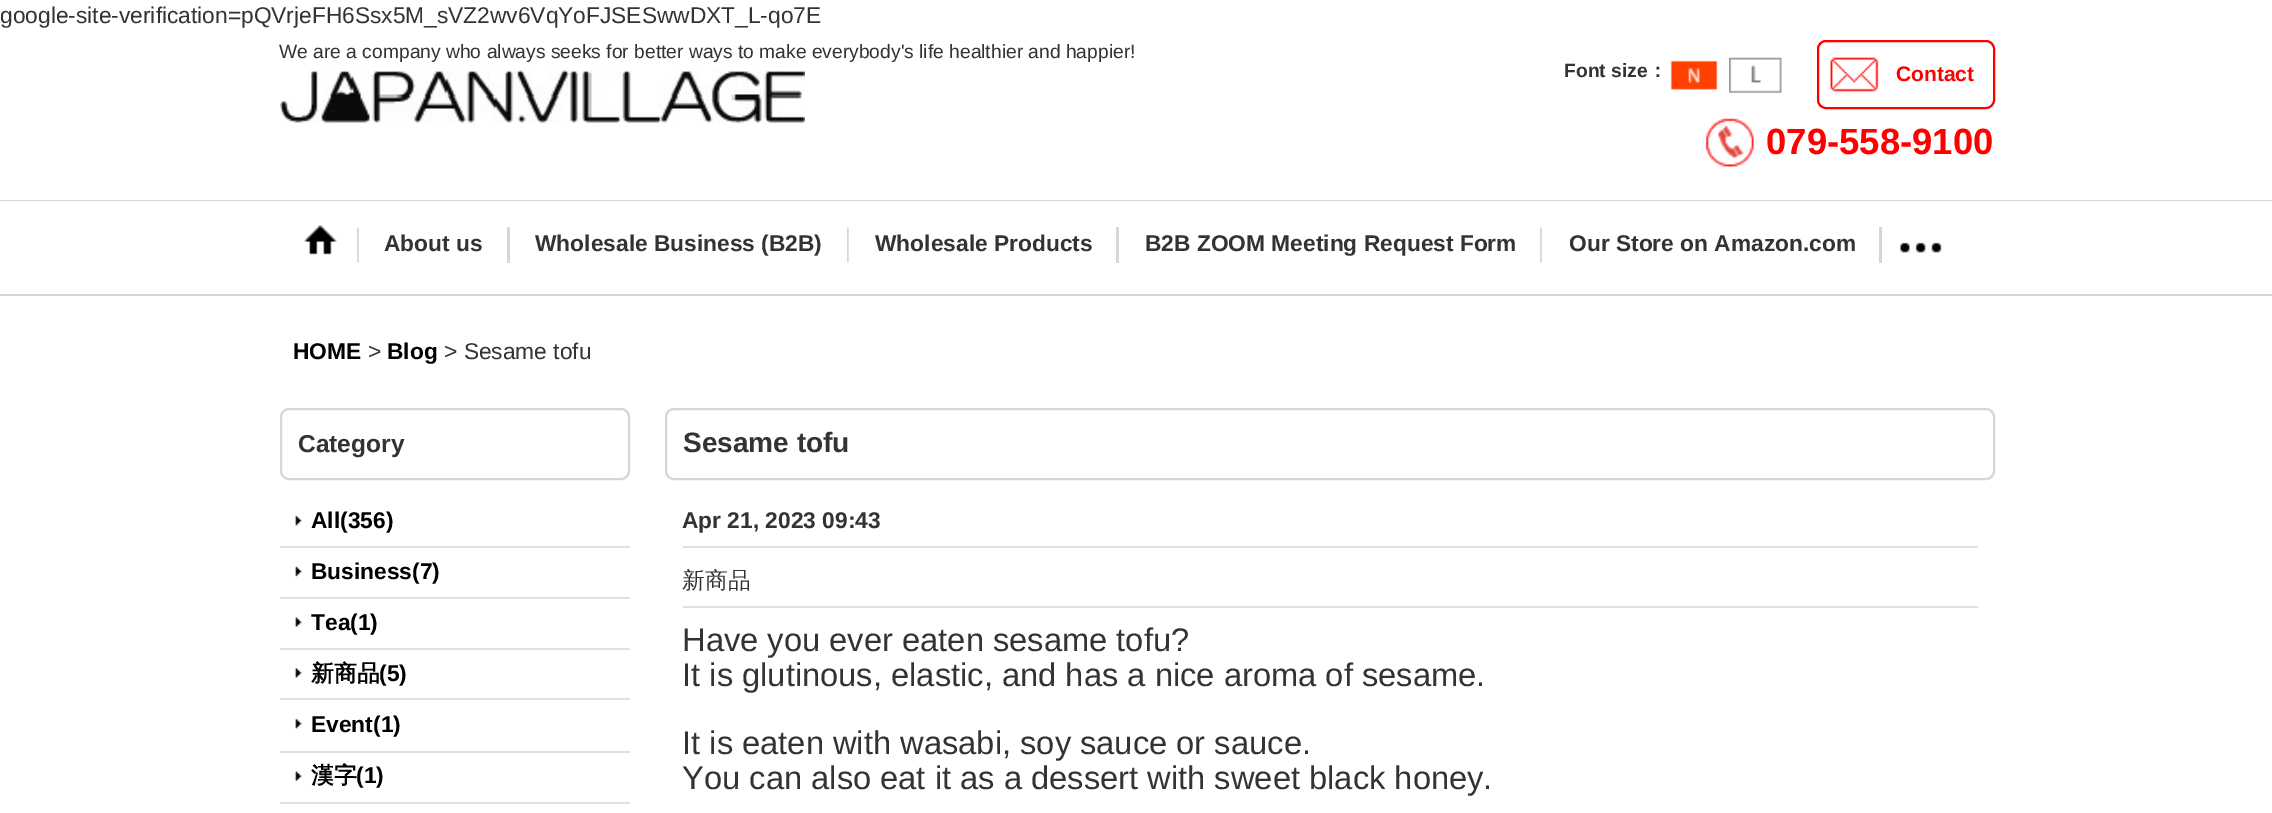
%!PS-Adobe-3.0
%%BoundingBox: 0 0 2272 813
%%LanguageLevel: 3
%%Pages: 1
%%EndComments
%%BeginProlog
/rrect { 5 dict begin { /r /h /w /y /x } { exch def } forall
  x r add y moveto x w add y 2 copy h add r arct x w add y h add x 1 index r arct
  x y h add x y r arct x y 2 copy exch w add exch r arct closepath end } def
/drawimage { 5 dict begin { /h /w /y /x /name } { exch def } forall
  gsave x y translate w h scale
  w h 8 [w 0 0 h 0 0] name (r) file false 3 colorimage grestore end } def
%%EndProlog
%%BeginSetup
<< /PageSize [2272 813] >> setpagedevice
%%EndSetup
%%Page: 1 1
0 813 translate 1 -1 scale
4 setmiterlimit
1 setgray
0 0 2272 813 rectfill
0.839 setgray
0 200 2272 1 rectfill
(images/1.raw) 280 70 525 53 drawimage
(images/2.raw) 1670 60 48 30 drawimage
(images/3.raw) 1729 57 53 36 drawimage
1 0 0 setrgbcolor
2 setlinewidth
1818 41 176 67 8 rrect stroke
(images/4.raw) 1830 57 49 35 drawimage
(images/5.raw) 1705 118 49 49 drawimage
0.839 setgray
0 294 2272 2 rectfill
(images/6.raw) 357 227 2 36 drawimage
(images/7.raw) 304 225 33 30 drawimage
507 227 3 36 rectfill
(images/6.raw) 847 227 2 36 drawimage
1116 227 3 36 rectfill
(images/6.raw) 1540 227 2 36 drawimage
1879 227 3 36 rectfill
(images/8.raw) 1900 242 42 11 drawimage
281 409 348 70 8 rrect stroke
(images/9.raw) 295 515 7 11 drawimage
0.878 0.875 0.89 setrgbcolor
280 546 350 2 rectfill
(images/10.raw) 295 566 7 11 drawimage
280 597 350 2 rectfill
(images/11.raw) 295 617 7 10 drawimage
280 648 350 2 rectfill
(images/12.raw) 295 668 7 10 drawimage
280 698 350 2 rectfill
(images/9.raw) 295 718 7 11 drawimage
280 751 350 2 rectfill
(images/11.raw) 295 771 7 10 drawimage
280 802 350 2 rectfill
0.839 setgray
666 409 1328 70 8 rrect stroke
0.878 0.875 0.89 setrgbcolor
683 546 1295 2 rectfill
683 606 1295 2 rectfill
/LiberationSans-Regular [22.75 0 0 -22.75 0 0] selectfont
0.2 setgray
0 23 moveto (google-site-verification=pQVrjeFH6Ssx5M_sVZ2wv6VqYoFJSESwwDXT_L-qo7E) show
/LiberationSans-Regular [19.25 0 0 -19.25 0 0] selectfont
279 58 moveto (We are a company who always seeks for better ways to make everybody's life healthier and happier!) show
/LiberationSans-Bold [19.25 0 0 -19.25 0 0] selectfont
1564 77 moveto (Font size) show
/WenQuanYiZenHei-Bold [19.25 0 0 -19.25 0 0] selectfont
1648 77 moveto (：) show
/LiberationSans-Bold [21 0 0 -21 0 0] selectfont
1 0 0 setrgbcolor
1896 81 moveto (Contact) show
/LiberationSans-Bold [36.5 0 0 -36.5 0 0] selectfont
1766 154 moveto (079-558-9100) show
/LiberationSans-Bold [22.75 0 0 -22.75 0 0] selectfont
0.2 setgray
384 251 moveto (About us) show
535 251 moveto (Wholesale Business \(B2B\)) show
875 251 moveto (Wholesale Products) show
1145 251 moveto (B2B ZOOM Meeting Request Form) show
1569 251 moveto (Our Store on Amazon.com) show
0 setgray
293 359 moveto (HOME) show
/LiberationSans-Regular [22.75 0 0 -22.75 0 0] selectfont
0.2 setgray
368 359 moveto (>) show
/LiberationSans-Bold [22.75 0 0 -22.75 0 0] selectfont
0 setgray
387 359 moveto (Blog) show
/LiberationSans-Regular [22.75 0 0 -22.75 0 0] selectfont
0.2 setgray
444 359 moveto (> Sesame tofu) show
/LiberationSans-Bold [24.5 0 0 -24.5 0 0] selectfont
298 452 moveto (Category) show
/LiberationSans-Bold [22.75 0 0 -22.75 0 0] selectfont
0 setgray
311 528 moveto (All\(356\)) show
311 579 moveto (Business\(7\)) show
311 630 moveto (Tea\(1\)) show
/WenQuanYiZenHei-Bold [22.75 0 0 -22.75 0 0] selectfont
311 681 moveto (新商品) show
/LiberationSans-Bold [22.75 0 0 -22.75 0 0] selectfont
379 681 moveto (\(5\)) show
311 732 moveto (Event\(1\)) show
/WenQuanYiZenHei-Bold [22.75 0 0 -22.75 0 0] selectfont
311 783 moveto (漢字) show
/LiberationSans-Bold [22.75 0 0 -22.75 0 0] selectfont
356 783 moveto (\(1\)) show
/LiberationSans-Bold [28 0 0 -28 0 0] selectfont
0.2 setgray
683 452 moveto (Sesame tofu) show
/LiberationSans-Bold [22.75 0 0 -22.75 0 0] selectfont
682 528 moveto (Apr 21, 2023 09:43) show
/WenQuanYiZenHei-Medium [22.75 0 0 -22.75 0 0] selectfont
682 588 moveto (新商品) show
/LiberationSans-Regular [32.7 0 0 -32.7 0 0] selectfont
682 651 moveto (Have you ever eaten sesame tofu?) show
682 686 moveto (It is glutinous, elastic, and has a nice aroma of sesame.) show
682 754 moveto (It is eaten with wasabi, soy sauce or sauce.) show
682 789 moveto (You can also eat it as a dessert with sweet black honey.) show
showpage
%%EOF
